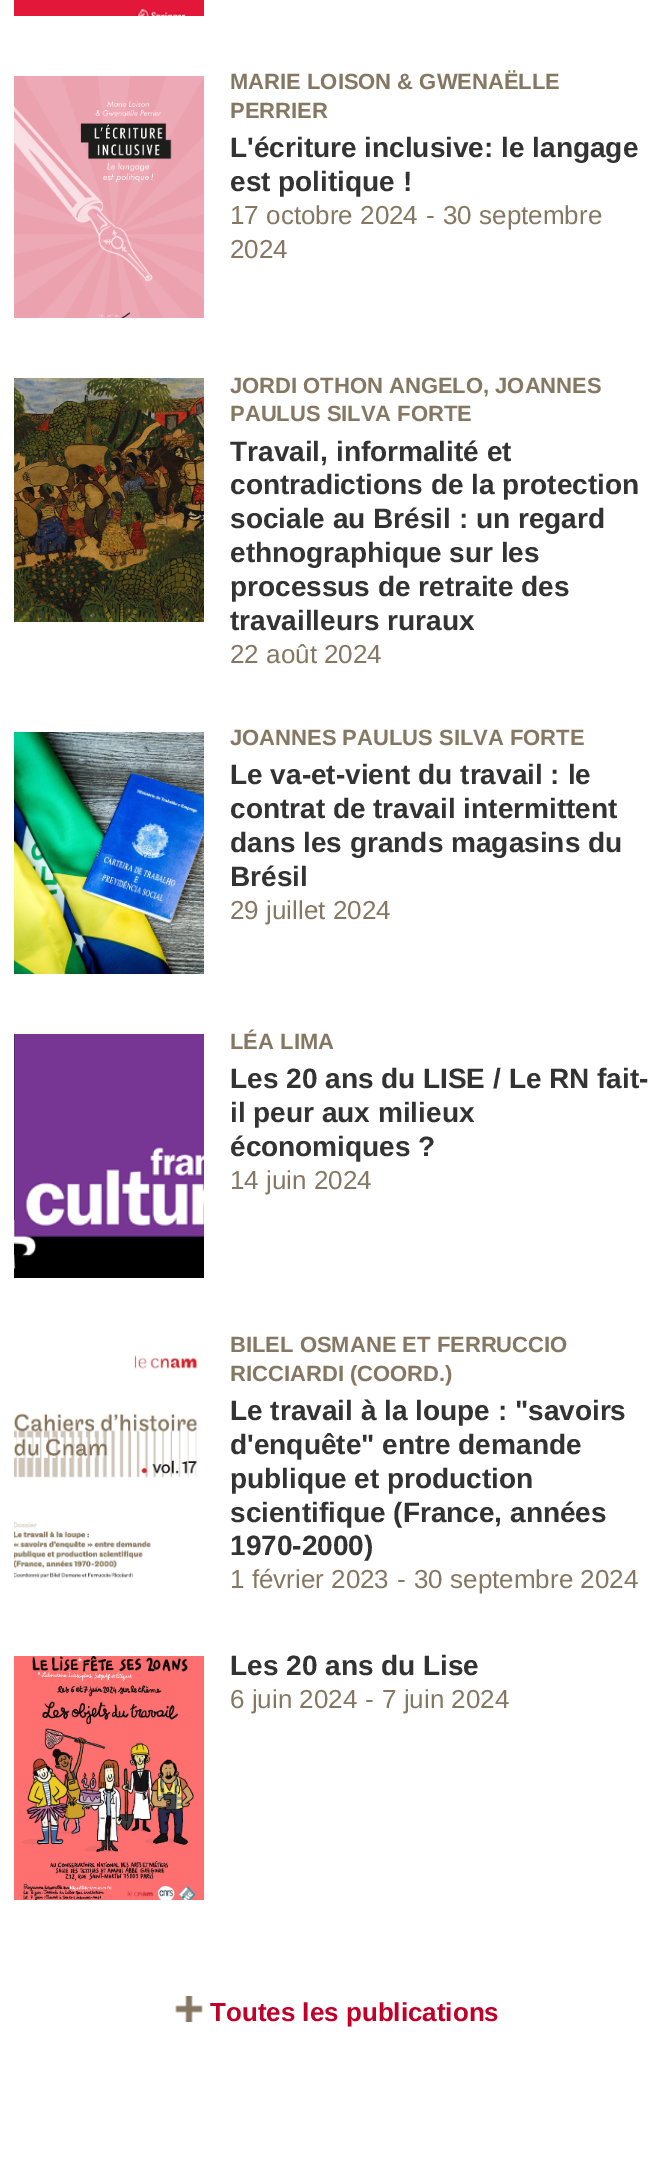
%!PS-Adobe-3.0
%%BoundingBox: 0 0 664 2178
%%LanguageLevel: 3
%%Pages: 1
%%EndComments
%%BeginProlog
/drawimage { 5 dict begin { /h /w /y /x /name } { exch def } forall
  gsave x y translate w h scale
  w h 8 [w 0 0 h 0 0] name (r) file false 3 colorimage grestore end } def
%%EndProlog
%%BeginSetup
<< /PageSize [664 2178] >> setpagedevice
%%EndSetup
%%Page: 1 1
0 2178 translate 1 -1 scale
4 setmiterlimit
1 setgray
0 0 664 2178 rectfill
(images/1.raw) 14 0 190 16 drawimage
(images/2.raw) 14 76 190 242 drawimage
(images/3.raw) 14 378 190 244 drawimage
(images/4.raw) 14 732 190 242 drawimage
(images/5.raw) 14 1034 190 244 drawimage
(images/6.raw) 14 1355 184 224 drawimage
(images/7.raw) 14 1656 190 244 drawimage
(images/8.raw) 175 1996 28 26 drawimage
/LiberationSans-Bold [22 0 0 -22 0 0] selectfont
0.522 0.467 0.38 setrgbcolor
230 89 moveto (MARIE LOISON & GWENAËLLE) show
230 118 moveto (PERRIER) show
/LiberationSans-Bold [28 0 0 -28 0 0] selectfont
0.2 setgray
230 157 moveto (L'écriture inclusive: le langage) show
230 191 moveto (est politique !) show
/LiberationSans-Regular [26 0 0 -26 0 0] selectfont
0.522 0.467 0.38 setrgbcolor
426 224 moveto (-) show
443 224 moveto (30 septembre) show
230 258 moveto (2024) show
230 224 moveto (17 octobre 2024) show
/LiberationSans-Bold [22 0 0 -22 0 0] selectfont
230 393 moveto (JORDI OTHON ANGELO, JOANNES) show
230 421 moveto (PAULUS SILVA FORTE) show
/LiberationSans-Bold [28 0 0 -28 0 0] selectfont
0.2 setgray
230 461 moveto (Travail, informalité et) show
230 494 moveto (contradictions de la protection) show
230 528 moveto (sociale au Brésil : un regard) show
230 562 moveto (ethnographique sur les) show
230 596 moveto (processus de retraite des) show
230 630 moveto (travailleurs ruraux) show
/LiberationSans-Regular [26 0 0 -26 0 0] selectfont
0.522 0.467 0.38 setrgbcolor
230 663 moveto (22 août 2024) show
/LiberationSans-Bold [22 0 0 -22 0 0] selectfont
230 745 moveto (JOANNES PAULUS SILVA FORTE) show
/LiberationSans-Bold [28 0 0 -28 0 0] selectfont
0.2 setgray
230 784 moveto (Le va-et-vient du travail : le) show
230 818 moveto (contrat de travail intermittent) show
230 852 moveto (dans les grands magasins du) show
230 886 moveto (Brésil) show
/LiberationSans-Regular [26 0 0 -26 0 0] selectfont
0.522 0.467 0.38 setrgbcolor
230 919 moveto (29 juillet 2024) show
/LiberationSans-Bold [22 0 0 -22 0 0] selectfont
230 1049 moveto (LÉA LIMA) show
/LiberationSans-Bold [28 0 0 -28 0 0] selectfont
0.2 setgray
230 1088 moveto (Les 20 ans du LISE / Le RN fait-) show
230 1122 moveto (il peur aux milieux) show
230 1156 moveto (économiques ?) show
/LiberationSans-Regular [26 0 0 -26 0 0] selectfont
0.522 0.467 0.38 setrgbcolor
230 1189 moveto (14 juin 2024) show
/LiberationSans-Bold [22 0 0 -22 0 0] selectfont
230 1352 moveto (BILEL OSMANE ET FERRUCCIO) show
230 1381 moveto (RICCIARDI \(COORD.\)) show
/LiberationSans-Bold [28 0 0 -28 0 0] selectfont
0.2 setgray
230 1420 moveto (Le travail à la loupe : "savoirs) show
230 1454 moveto (d'enquête" entre demande) show
230 1488 moveto (publique et production) show
230 1522 moveto (scientifique \(France, années) show
230 1555 moveto (1970-2000\)) show
/LiberationSans-Regular [26 0 0 -26 0 0] selectfont
0.522 0.467 0.38 setrgbcolor
230 1588 moveto (1 février 2023) show
397 1588 moveto (-) show
414 1588 moveto (30 septembre 2024) show
/LiberationSans-Bold [28 0 0 -28 0 0] selectfont
0.2 setgray
230 1675 moveto (Les 20 ans du Lise) show
/LiberationSans-Regular [26 0 0 -26 0 0] selectfont
0.522 0.467 0.38 setrgbcolor
230 1708 moveto (6 juin 2024) show
365 1708 moveto (-) show
382 1708 moveto (7 juin 2024) show
/LiberationSans-Bold [26 0 0 -26 0 0] selectfont
0.757 0 0.165 setrgbcolor
210 2021 moveto (Toutes les publications) show
showpage
%%EOF
